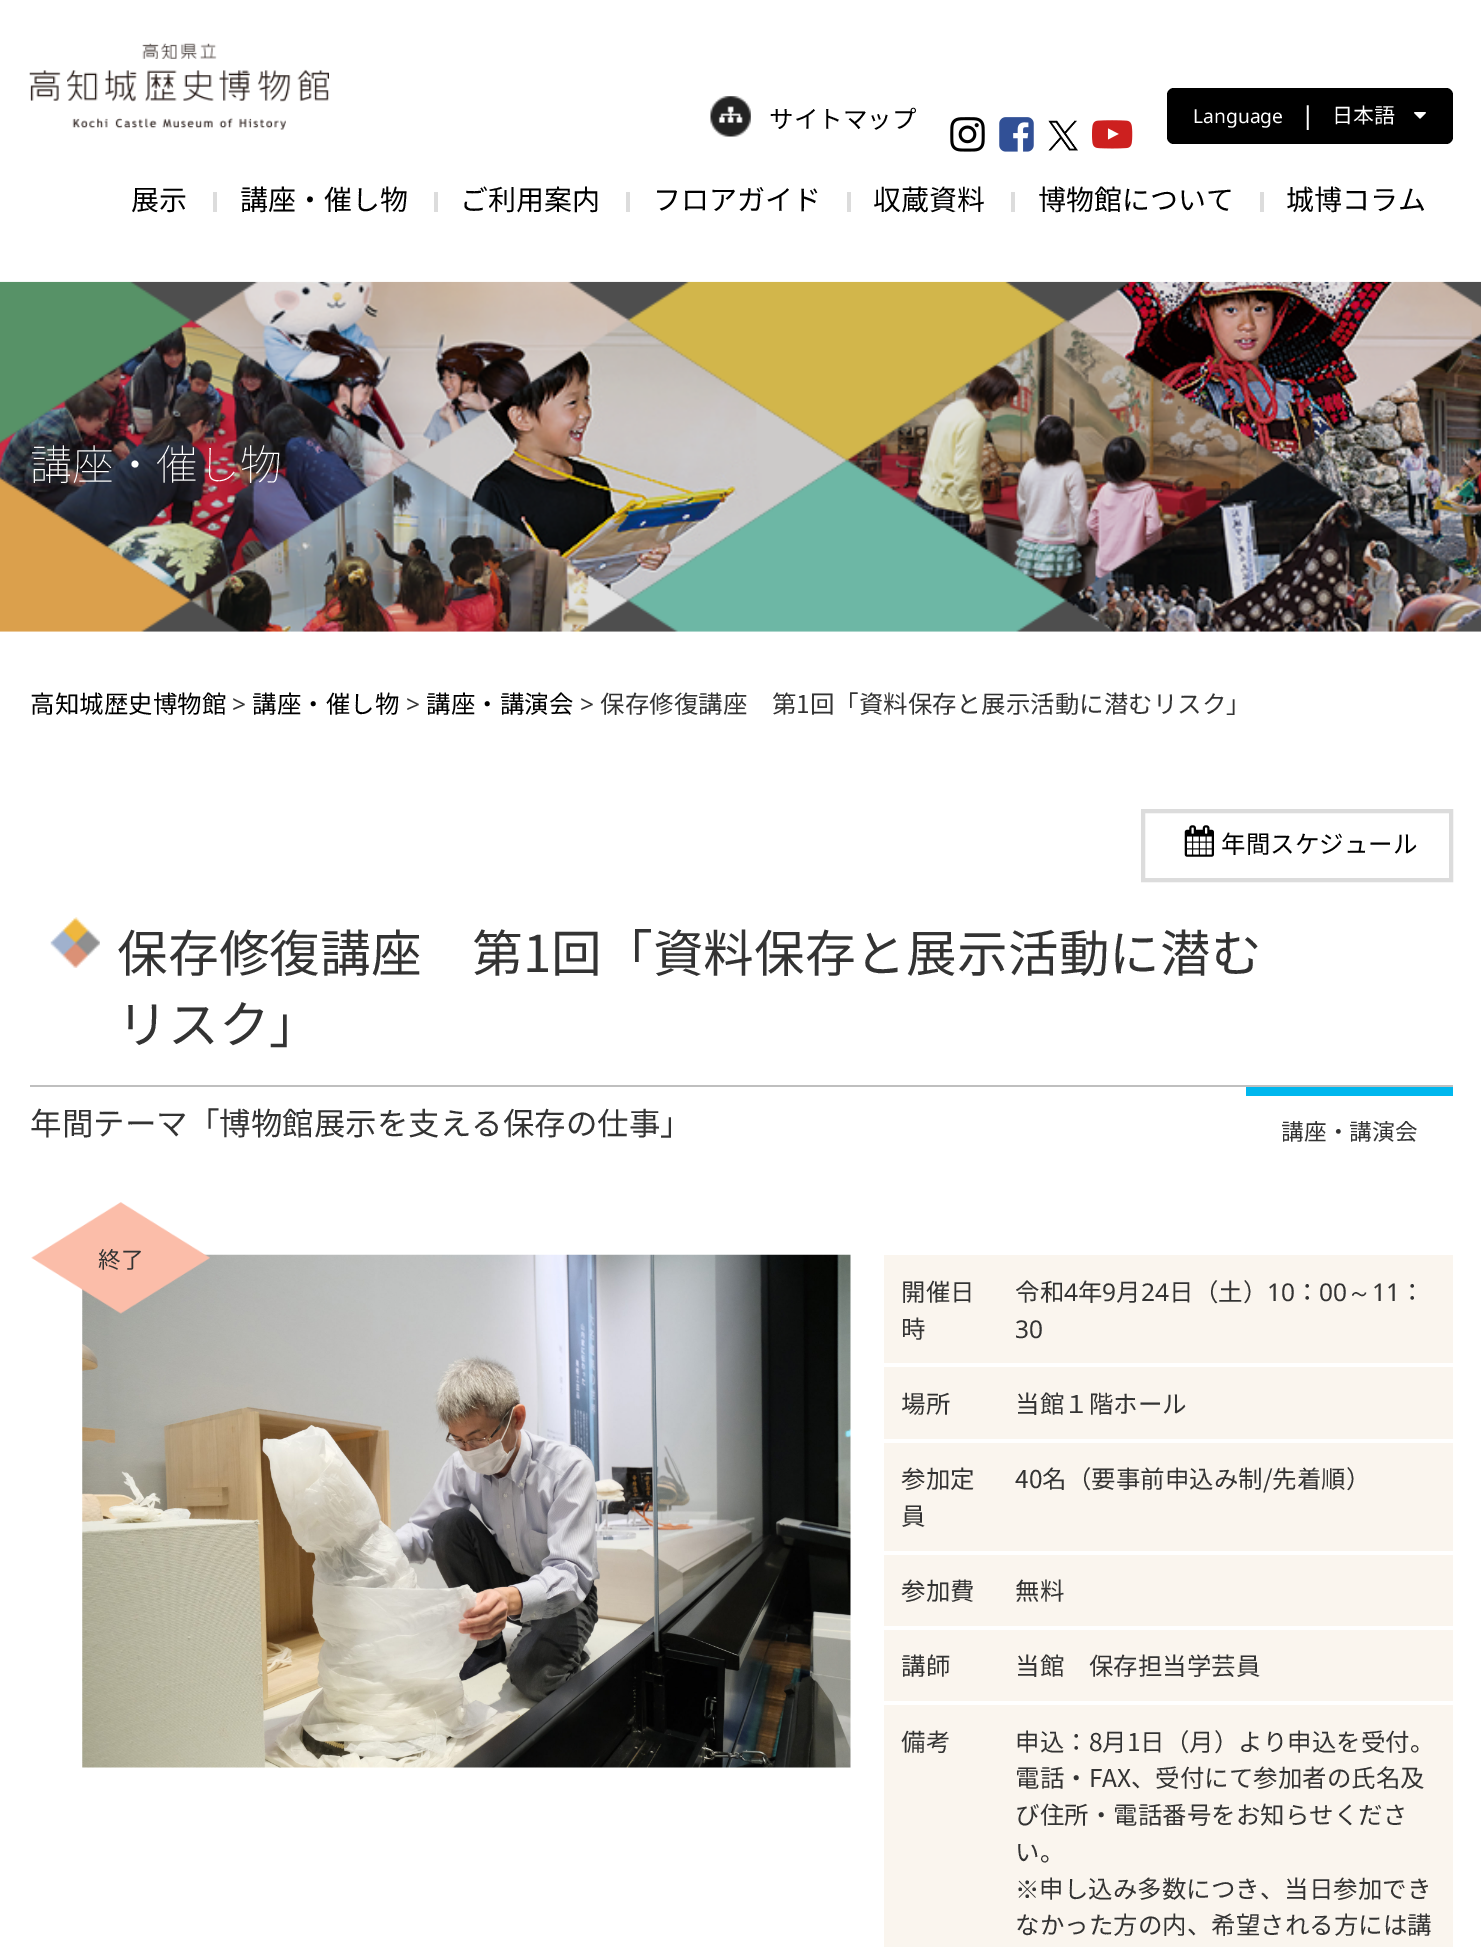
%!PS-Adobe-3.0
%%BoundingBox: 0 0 1481 1947
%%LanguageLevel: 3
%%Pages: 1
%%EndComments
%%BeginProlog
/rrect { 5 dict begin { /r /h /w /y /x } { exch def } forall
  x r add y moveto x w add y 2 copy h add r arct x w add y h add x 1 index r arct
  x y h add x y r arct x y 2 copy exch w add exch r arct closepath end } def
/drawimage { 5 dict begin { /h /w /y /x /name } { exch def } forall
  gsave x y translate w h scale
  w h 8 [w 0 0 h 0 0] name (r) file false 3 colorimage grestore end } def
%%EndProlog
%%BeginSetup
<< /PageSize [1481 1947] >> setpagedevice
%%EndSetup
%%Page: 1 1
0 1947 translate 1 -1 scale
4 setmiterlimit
1 setgray
0 0 1481 1947 rectfill
(images/1.raw) 29 43 300 87 drawimage
(images/2.raw) 710 96 41 41 drawimage
(images/3.raw) 950 117 35 35 drawimage
(images/4.raw) 999 117 35 35 drawimage
(images/5.raw) 1048 120 30 31 drawimage
(images/6.raw) 1092 120 41 29 drawimage
0 setgray
1167 88 286 56 7 rrect fill
(images/7.raw) 1414 112 12 7 drawimage
0.863 setgray
213 192 4 20 rectfill
434 192 4 20 rectfill
626 192 4 20 rectfill
847 192 4 20 rectfill
1011 192 4 20 rectfill
1260 192 4 20 rectfill
(images/8.raw) 0 281 1481 351 drawimage
4 setlinewidth
1143 811 308 69 rectstroke
(images/9.raw) 1184 825 30 32 drawimage
0.749 setgray
30 1085 1423 2 rectfill
(images/10.raw) 50 917 50 51 drawimage
0 0.718 0.933 setrgbcolor
1246 1087 207 9 rectfill
(images/12.raw) 82 1254 769 514 drawimage
(images/11.raw) 31 1202 179 112 drawimage
0.98 0.961 0.933 setrgbcolor
884 1255 569 108 rectfill
884 1367 569 72 rectfill
884 1443 569 108 rectfill
884 1555 569 71 rectfill
884 1630 569 71 rectfill
884 1705 569 242 rectfill
/NotoSansJP-Regular [24.5 0 0 -24.5 0 0] selectfont
0 setgray
769 128 moveto (サイトマップ) show
/NotoSans-Regular [19.25 0 0 -19.25 0 0] selectfont
1 setgray
1193 123 moveto (Language) show
/NotoSans-Regular [24.5 0 0 -24.5 0 0] selectfont
1301 124 moveto (|) show
/NotoSansJP-Regular [21 0 0 -21 0 0] selectfont
1332 123 moveto (日本語) show
/NotoSansJP-Regular [28 0 0 -28 0 0] selectfont
0 setgray
131 210 moveto (展示) show
240 210 moveto (講座・催し物) show
460 210 moveto (ご利用案内) show
653 210 moveto (フロアガイド) show
873 210 moveto (収蔵資料) show
1038 210 moveto (博物館について) show
1286 210 moveto (城博コラム) show
/NotoSansJP-Thin [42 0 0 -42 0 0] selectfont
1 setgray
30 480 moveto (講座・催し物) show
/NotoSansJP-Regular [24.5 0 0 -24.5 0 0] selectfont
0 setgray
30 713 moveto (高知城歴史博物館) show
/NotoSans-Regular [24.5 0 0 -24.5 0 0] selectfont
0.2 setgray
232 713 moveto (>) show
/NotoSansJP-Regular [24.5 0 0 -24.5 0 0] selectfont
0 setgray
252 713 moveto (講座・催し物) show
/NotoSans-Regular [24.5 0 0 -24.5 0 0] selectfont
0.2 setgray
406 713 moveto (>) show
/NotoSansJP-Regular [24.5 0 0 -24.5 0 0] selectfont
0 setgray
426 713 moveto (講座・講演会) show
/NotoSans-Regular [24.5 0 0 -24.5 0 0] selectfont
0.2 setgray
580 713 moveto (>) show
/NotoSansJP-Regular [24.5 0 0 -24.5 0 0] selectfont
600 713 moveto (保存修復講座　第1回「資料保存と展示活動に潜むリスク」) show
0 setgray
1221 853 moveto (年間スケジュール) show
/NotoSansJP-Regular [50.75 0 0 -50.75 0 0] selectfont
0.2 setgray
117 972 moveto (保存修復講座　第1回「資料保存と展示活動に潜む) show
117 1043 moveto (リスク」) show
/NotoSansJP-Regular [31.5 0 0 -31.5 0 0] selectfont
30 1135 moveto (年間テーマ「博物館展示を支える保存の仕事」) show
/NotoSansJP-Regular [22.75 0 0 -22.75 0 0] selectfont
1281 1140 moveto (講座・講演会) show
98 1268 moveto (終了) show
/NotoSansJP-Regular [24.5 0 0 -24.5 0 0] selectfont
901 1301 moveto (開催日) show
901 1338 moveto (時) show
1015 1301 moveto (令和) show
/NotoSans-Regular [24.5 0 0 -24.5 0 0] selectfont
1064 1301 moveto (4) show
/NotoSansJP-Regular [24.5 0 0 -24.5 0 0] selectfont
1078 1301 moveto (年) show
/NotoSans-Regular [24.5 0 0 -24.5 0 0] selectfont
1102 1301 moveto (9) show
/NotoSansJP-Regular [24.5 0 0 -24.5 0 0] selectfont
1116 1301 moveto (月) show
/NotoSans-Regular [24.5 0 0 -24.5 0 0] selectfont
1141 1301 moveto (24) show
/NotoSansJP-Regular [24.5 0 0 -24.5 0 0] selectfont
1169 1301 moveto (日（土）) show
/NotoSans-Regular [24.5 0 0 -24.5 0 0] selectfont
1267 1301 moveto (10) show
/NotoSansJP-Regular [24.5 0 0 -24.5 0 0] selectfont
1295 1301 moveto (：) show
/NotoSans-Regular [24.5 0 0 -24.5 0 0] selectfont
1319 1301 moveto (00) show
/WenQuanYiZenHei-Medium [24.5 0 0 -24.5 0 0] selectfont
1347 1301 moveto (～) show
/NotoSans-Regular [24.5 0 0 -24.5 0 0] selectfont
1372 1301 moveto (11) show
/NotoSansJP-Regular [24.5 0 0 -24.5 0 0] selectfont
1400 1301 moveto (：) show
/NotoSans-Regular [24.5 0 0 -24.5 0 0] selectfont
1015 1338 moveto (30) show
/NotoSansJP-Regular [24.5 0 0 -24.5 0 0] selectfont
901 1413 moveto (場所) show
1015 1413 moveto (当館１階ホール) show
901 1488 moveto (参加定) show
901 1525 moveto (員) show
1015 1488 moveto (40名（要事前申込み制/先着順）) show
901 1600 moveto (参加費) show
1015 1600 moveto (無料) show
901 1675 moveto (講師) show
1015 1675 moveto (当館　保存担当学芸員) show
901 1751 moveto (備考) show
1015 1751 moveto (申込：8月1日（月）より申込を受付。) show
1015 1787 moveto (電話・FAX、受付にて参加者の氏名及) show
1015 1824 moveto (び住所・電話番号をお知らせくださ) show
1015 1861 moveto (い。) show
/WenQuanYiZenHei-Medium [24.5 0 0 -24.5 0 0] selectfont
1015 1898 moveto (※) show
/NotoSansJP-Regular [24.5 0 0 -24.5 0 0] selectfont
1039 1898 moveto (申し込み多数につき、当日参加でき) show
1015 1934 moveto (なかった方の内、希望される方には講) show
showpage
%%EOF
